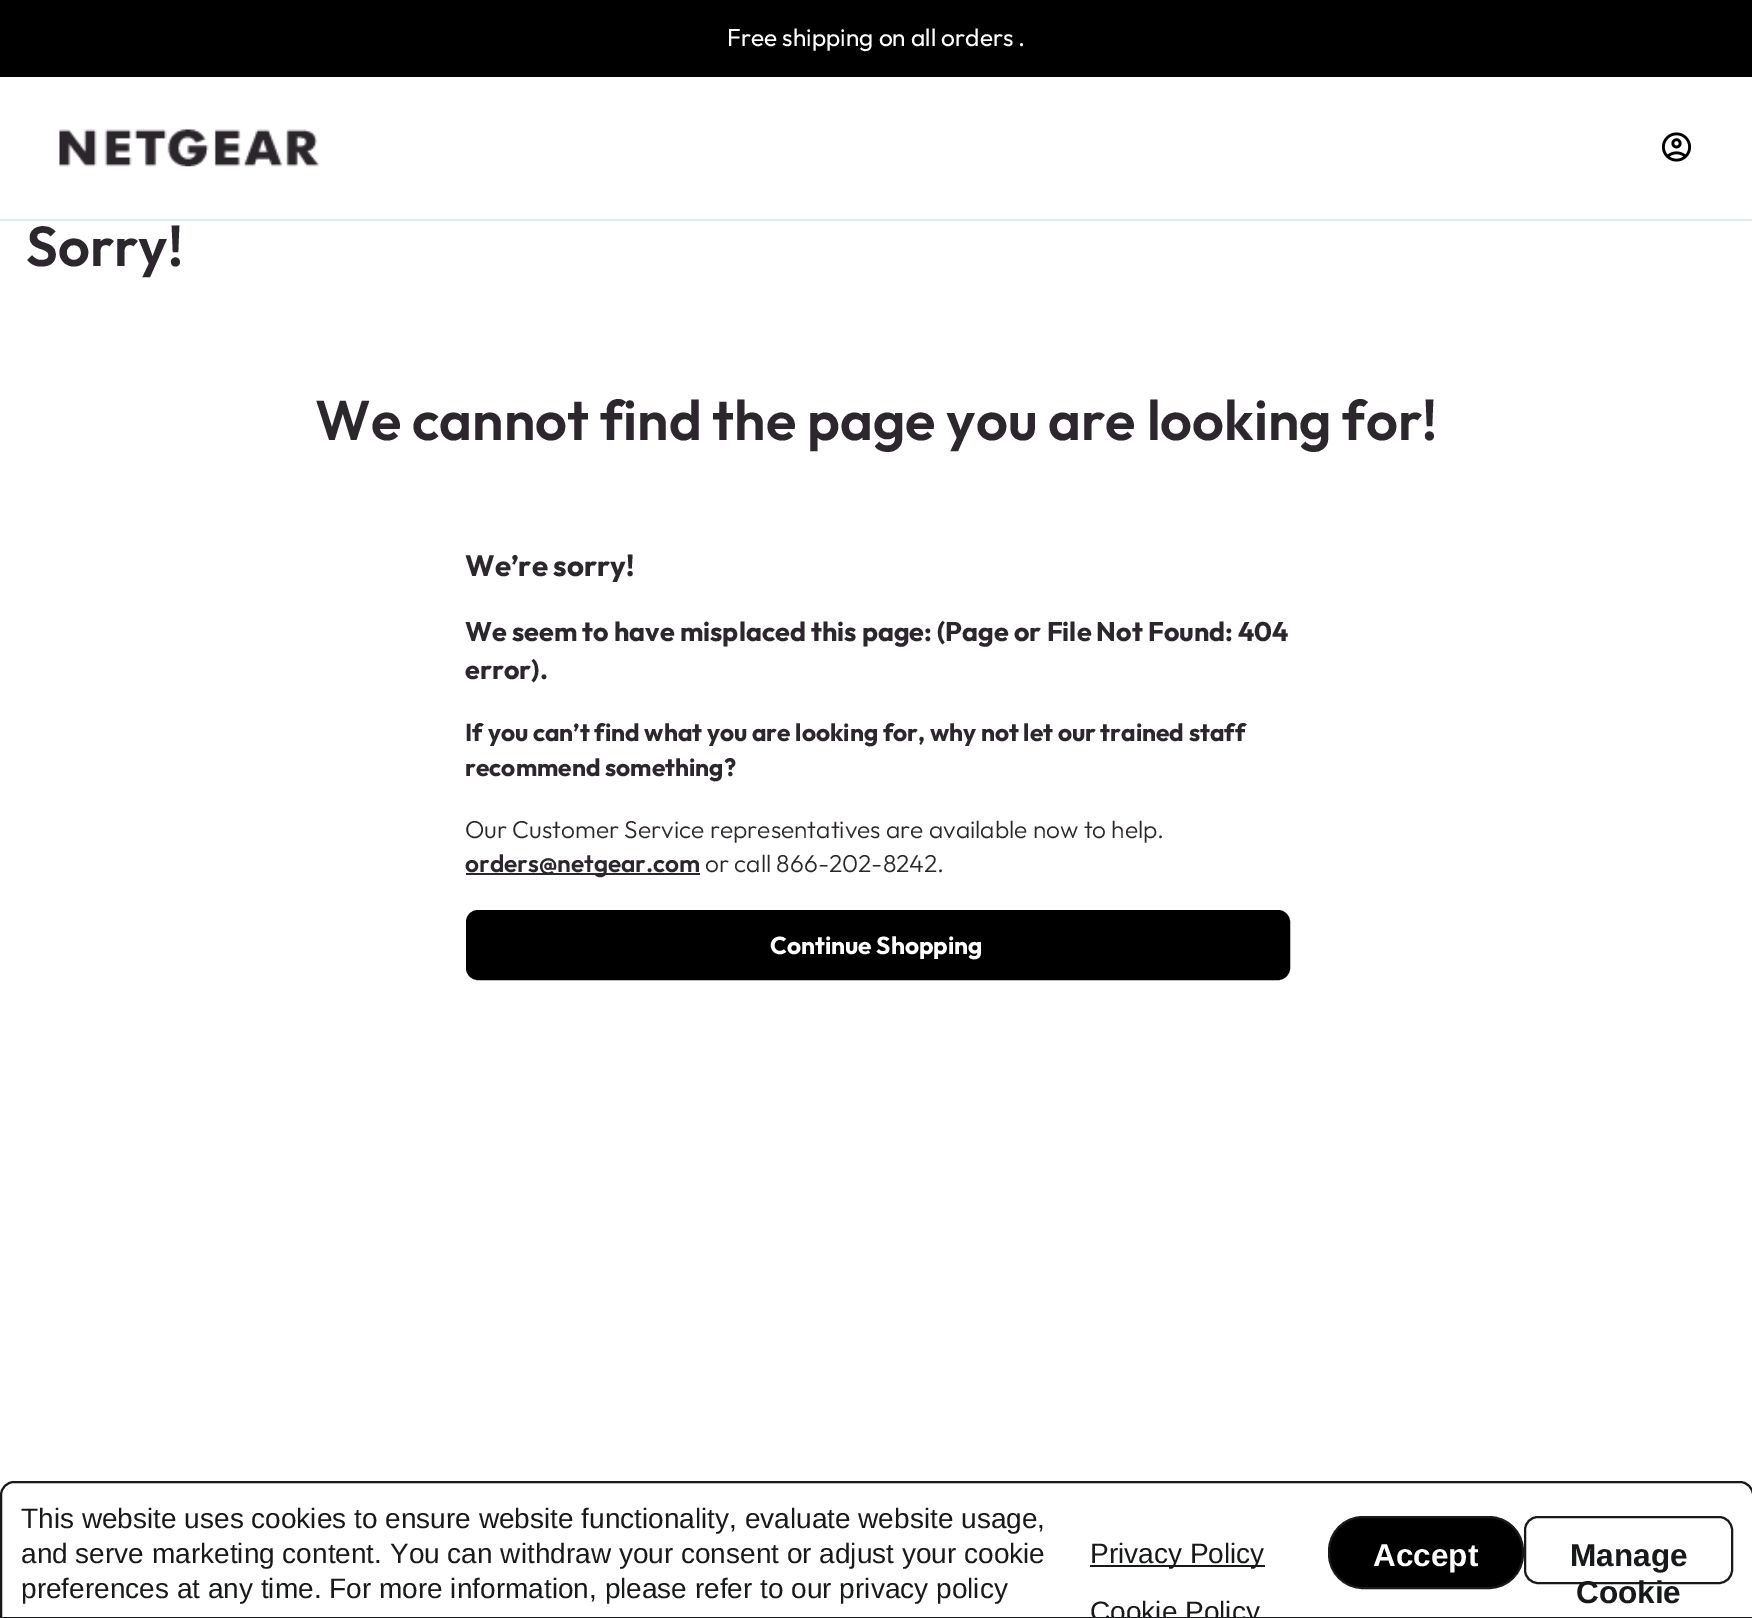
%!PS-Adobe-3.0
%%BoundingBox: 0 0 1752 1618
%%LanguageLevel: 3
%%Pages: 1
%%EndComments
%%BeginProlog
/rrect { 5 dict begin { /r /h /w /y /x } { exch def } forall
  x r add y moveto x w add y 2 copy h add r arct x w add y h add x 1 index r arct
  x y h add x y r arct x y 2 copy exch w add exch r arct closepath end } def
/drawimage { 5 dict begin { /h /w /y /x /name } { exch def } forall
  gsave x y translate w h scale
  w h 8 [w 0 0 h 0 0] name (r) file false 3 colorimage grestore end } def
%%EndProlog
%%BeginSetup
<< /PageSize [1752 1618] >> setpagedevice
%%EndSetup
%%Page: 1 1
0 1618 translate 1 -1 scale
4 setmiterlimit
1 setgray
0 0 1752 1618 rectfill
0 setgray
0 0 1752 77 rectfill
0.886 0.91 0.941 setrgbcolor
0 219 1752 2 rectfill
(images/1.raw) 59 129 260 38 drawimage
(images/2.raw) 1661 132 31 30 drawimage
0.173 0.149 0.176 setrgbcolor
466 873 234 2 rectfill
0 setgray
467 911 822 68 11 rrect gsave fill grestore
2 setlinewidth
stroke
0.09 0.098 0.102 setrgbcolor
newpath 14 1482 moveto 1740 1482 lineto 1747 1482 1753 1488 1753 1495 curveto 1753 1618 lineto 1 1618 lineto 1 1495 lineto 1 1488 7 1482 14 1482 curveto closepath stroke
1090 1565 175 2 rectfill
0 setgray
1329 1517 194 71 34 rrect gsave fill grestore
0.09 0.098 0.102 setrgbcolor
stroke
1525 1517 207 66 13 rrect stroke
/Outfit-Regular [24.5 0 0 -24.5 0 0] selectfont
1 setgray
727 46 moveto (Free shipping on all orders .) show
/Outfit-SemiBold [56 0 0 -56 0 0] selectfont
0.173 0.149 0.176 setrgbcolor
26 266 moveto (Sorry!) show
315 440 moveto (We cannot find the page you are looking for!) show
/Outfit-Bold [29.5 0 0 -29.5 0 0] selectfont
465 576 moveto (We’re sorry!) show
/Outfit-Bold [26.95 0 0 -26.95 0 0] selectfont
465 641 moveto (We seem to have misplaced this page: \(Page or File Not Found: 404) show
465 679 moveto (error\).) show
/Outfit-Bold [24.5 0 0 -24.5 0 0] selectfont
465 741 moveto (If you can’t find what you are looking for, why not let our trained staff) show
465 776 moveto (recommend something?) show
/Outfit-Light [24.5 0 0 -24.5 0 0] selectfont
465 838 moveto (Our Customer Service representatives are available now to help.) show
/Outfit-SemiBold [24.5 0 0 -24.5 0 0] selectfont
465 872 moveto (orders@netgear.com) show
/Outfit-Light [24.5 0 0 -24.5 0 0] selectfont
705 872 moveto (or call 866-202-8242.) show
/Outfit-Bold [24.5 0 0 -24.5 0 0] selectfont
1 setgray
770 954 moveto (Continue Shopping) show
/LiberationSans-Regular [28 0 0 -28 0 0] selectfont
0.09 0.098 0.102 setrgbcolor
21 1528 moveto (This website uses cookies to ensure website functionality, evaluate website usage,) show
21 1563 moveto (and serve marketing content. You can withdraw your consent or adjust your cookie) show
21 1598 moveto (preferences at any time. For more information, please refer to our privacy policy) show
1090 1563 moveto (Privacy Policy) show
gsave
newpath 14 1482 moveto 1740 1482 lineto 1746.5 1482 1752 1487.5 1752 1494 curveto 1752 1617 lineto 2 1617 lineto 2 1494 lineto 2 1487.5 7.5 1482 14 1482 curveto closepath clip newpath
1090 1621 moveto (Cookie Policy) show
grestore
/LiberationSans-Bold [31.5 0 0 -31.5 0 0] selectfont
1 setgray
1373 1566 moveto (Accept) show
0.09 0.098 0.102 setrgbcolor
1570 1566 moveto (Manage) show
1576 1603 moveto (Cookie) show
showpage
%%EOF
